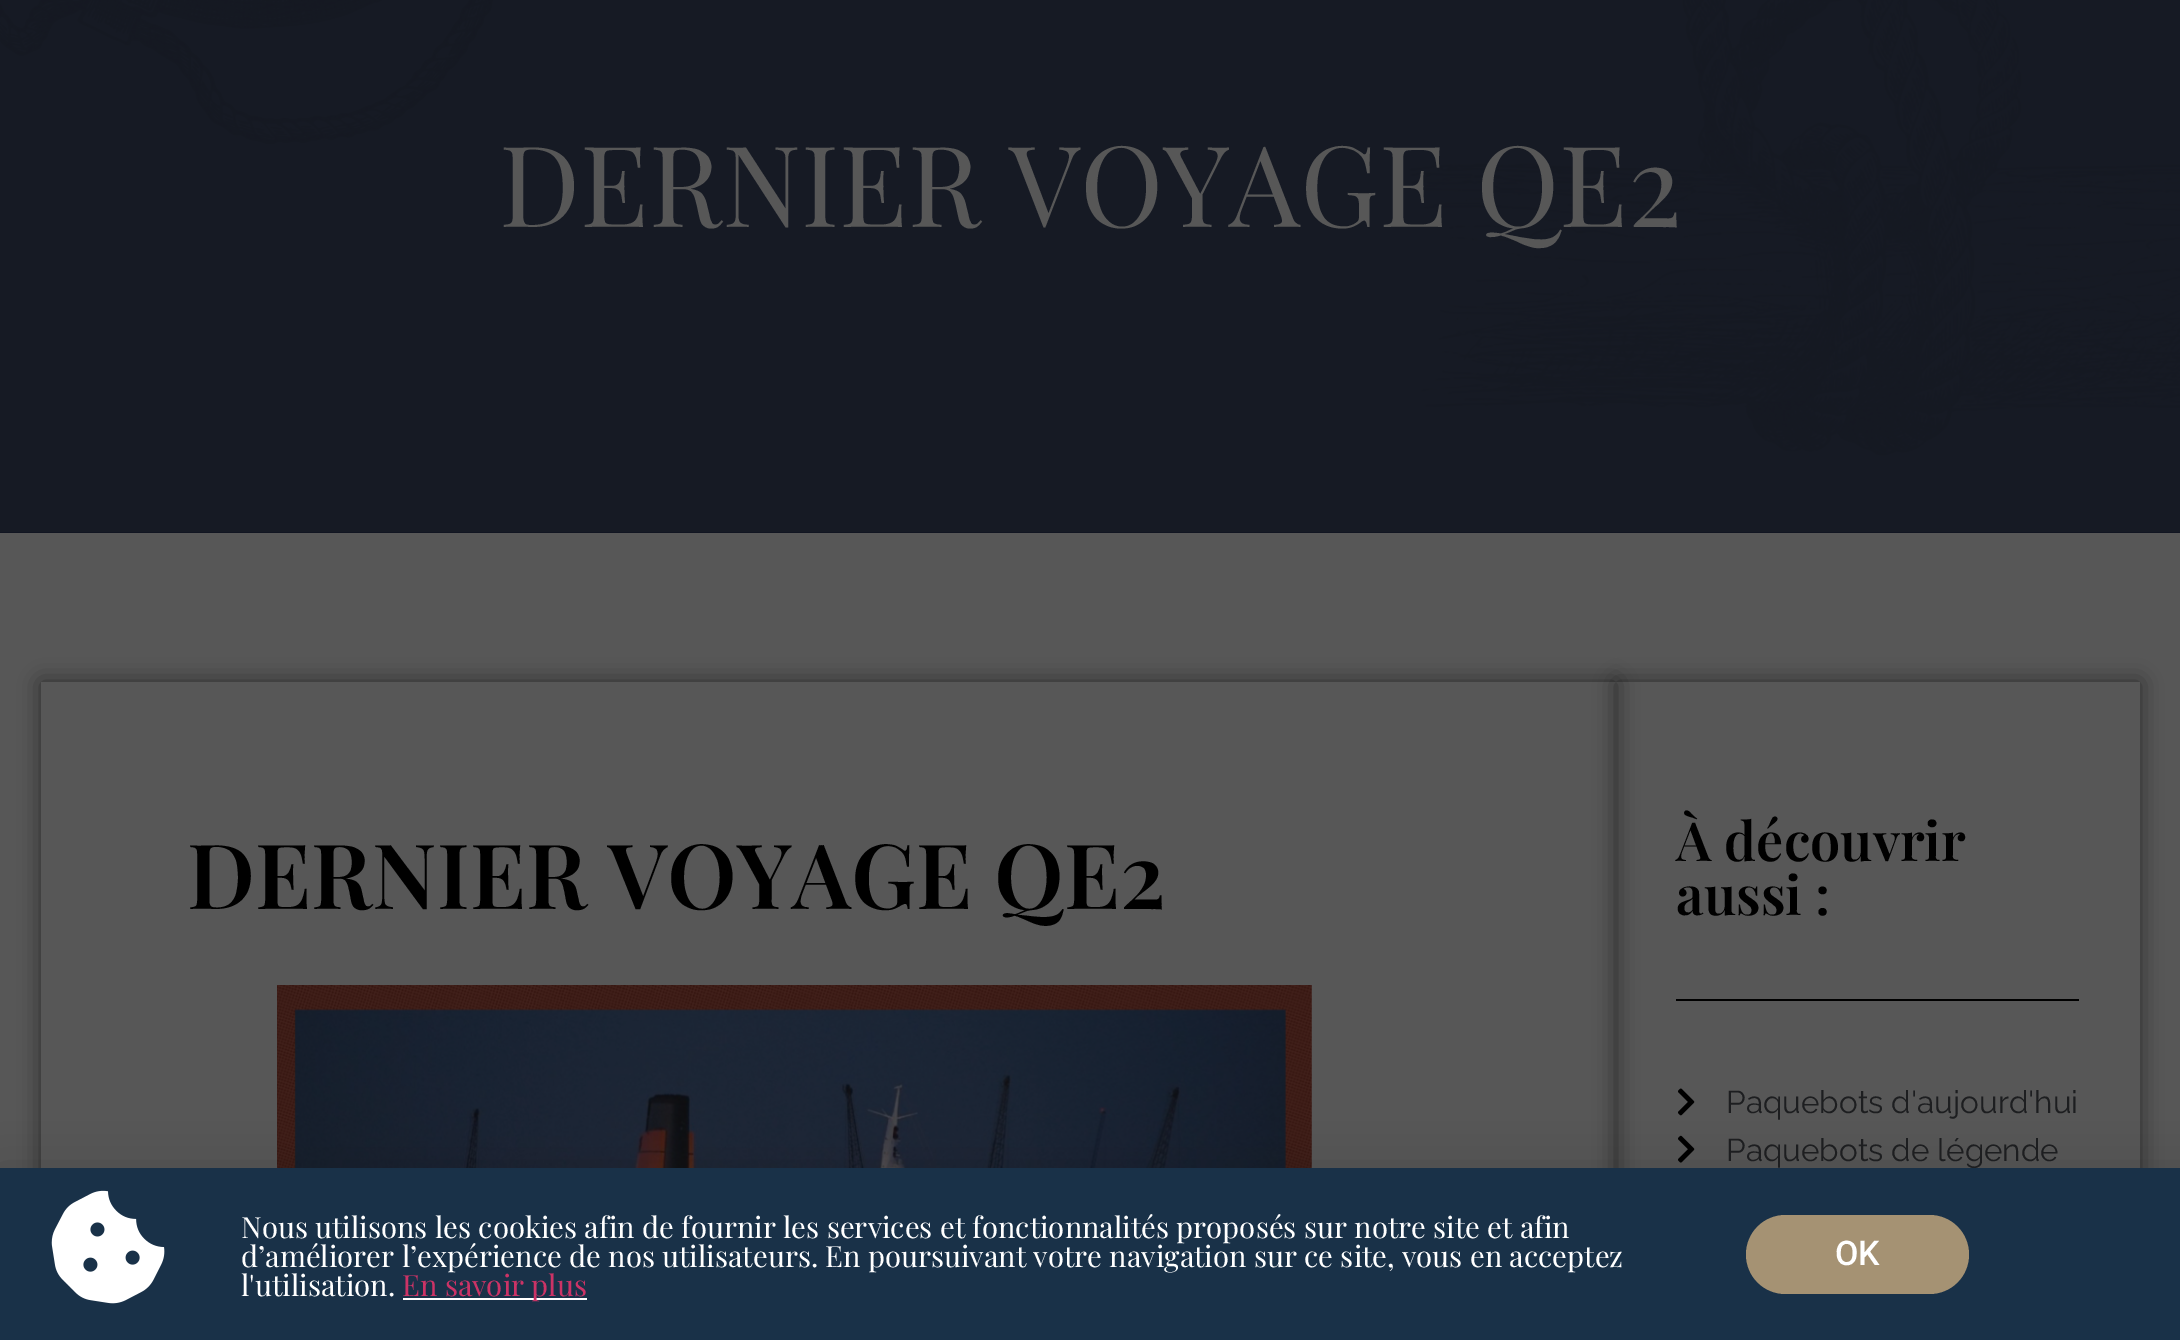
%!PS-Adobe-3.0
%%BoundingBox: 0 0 2180 1340
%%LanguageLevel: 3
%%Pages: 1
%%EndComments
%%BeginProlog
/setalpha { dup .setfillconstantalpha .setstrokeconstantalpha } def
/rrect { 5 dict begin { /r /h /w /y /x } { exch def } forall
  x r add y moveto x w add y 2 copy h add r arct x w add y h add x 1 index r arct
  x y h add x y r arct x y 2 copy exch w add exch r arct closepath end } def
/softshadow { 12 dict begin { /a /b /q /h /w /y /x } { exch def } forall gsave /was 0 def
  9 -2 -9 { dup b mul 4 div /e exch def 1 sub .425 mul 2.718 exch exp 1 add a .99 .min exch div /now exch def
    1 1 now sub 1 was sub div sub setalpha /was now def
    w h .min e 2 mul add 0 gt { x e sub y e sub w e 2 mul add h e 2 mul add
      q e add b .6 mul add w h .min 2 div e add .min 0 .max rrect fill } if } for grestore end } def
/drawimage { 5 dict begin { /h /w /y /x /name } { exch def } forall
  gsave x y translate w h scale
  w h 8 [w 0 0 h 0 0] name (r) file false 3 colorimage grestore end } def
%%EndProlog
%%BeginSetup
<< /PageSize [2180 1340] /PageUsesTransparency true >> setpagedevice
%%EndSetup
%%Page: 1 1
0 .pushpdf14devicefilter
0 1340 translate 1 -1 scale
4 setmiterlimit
0.341 setgray
0 0 2180 1340 rectfill
0 0.024 0.086 setrgbcolor
0 0 2180 533 rectfill
(images/1.raw) 0 0 2180 533 drawimage
gsave
newpath 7 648 moveto 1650 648 lineto 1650 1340 lineto 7 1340 lineto closepath 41 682 moveto 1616 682 lineto 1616 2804 lineto 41 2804 lineto closepath eoclip newpath
0 setgray
41 682 1575 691 0 11 0.5 softshadow
grestore
(images/2.raw) 277 985 1035 183 drawimage
gsave
newpath 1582 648 moveto 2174 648 lineto 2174 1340 lineto 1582 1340 lineto closepath 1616 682 moveto 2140 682 lineto 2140 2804 lineto 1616 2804 lineto closepath eoclip newpath
0 setgray
1616 682 524 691 0 11 0.5 softshadow
grestore
0 setgray
1676 999 403 2 rectfill
(images/3.raw) 1678 1088 17 28 drawimage
(images/4.raw) 1678 1135 17 28 drawimage
-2 1179 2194 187 0 26 0.2 softshadow
0.098 0.192 0.282 setrgbcolor
0 1168 2180 172 rectfill
(images/5.raw) 51 1190 114 114 drawimage
1 setgray
403 1298 184 2 rectfill
0.647 0.573 0.451 setrgbcolor
1746 1215 223 79 39.5 rrect fill
/PlayfairDisplay-Regular [112.5 0 0 -112.5 0 0] selectfont
0.341 setgray
499 227 moveto (DERNIER VOYAGE QE2) show
/PlayfairDisplay-SemiBold [90 0 0 -90 0 0] selectfont
0 setgray
187 909 moveto (DERNIER VOYAGE QE2) show
/PlayfairDisplay-SemiBold [54 0 0 -54 0 0] selectfont
1676 861 moveto (À découvrir) show
1676 915 moveto (aussi :) show
/Raleway-Regular [31.5 0 0 -31.5 0 0] selectfont
0.114 0.118 0.125 setrgbcolor
1726 1113 moveto (Paquebots d'aujourd'hui) show
1726 1161 moveto (Paquebots de légende) show
/PlayfairDisplay-Regular [29.25 0 0 -29.25 0 0] selectfont
1 setgray
241 1238 moveto (Nous utilisons les cookies afin de fournir les services et fonctionnalités proposés sur notre site et afin) show
241 1267 moveto (d’améliorer l’expérience de nos utilisateurs. En poursuivant votre navigation sur ce site, vous en acceptez) show
241 1296 moveto (l'utilisation.) show
0.8 0.2 0.4 setrgbcolor
402 1296 moveto (En savoir plus) show
/Roboto-Medium [34 0 0 -34 0 0] selectfont
1 setgray
1835 1265 moveto (OK) show
.poppdf14devicefilter showpage
%%EOF
